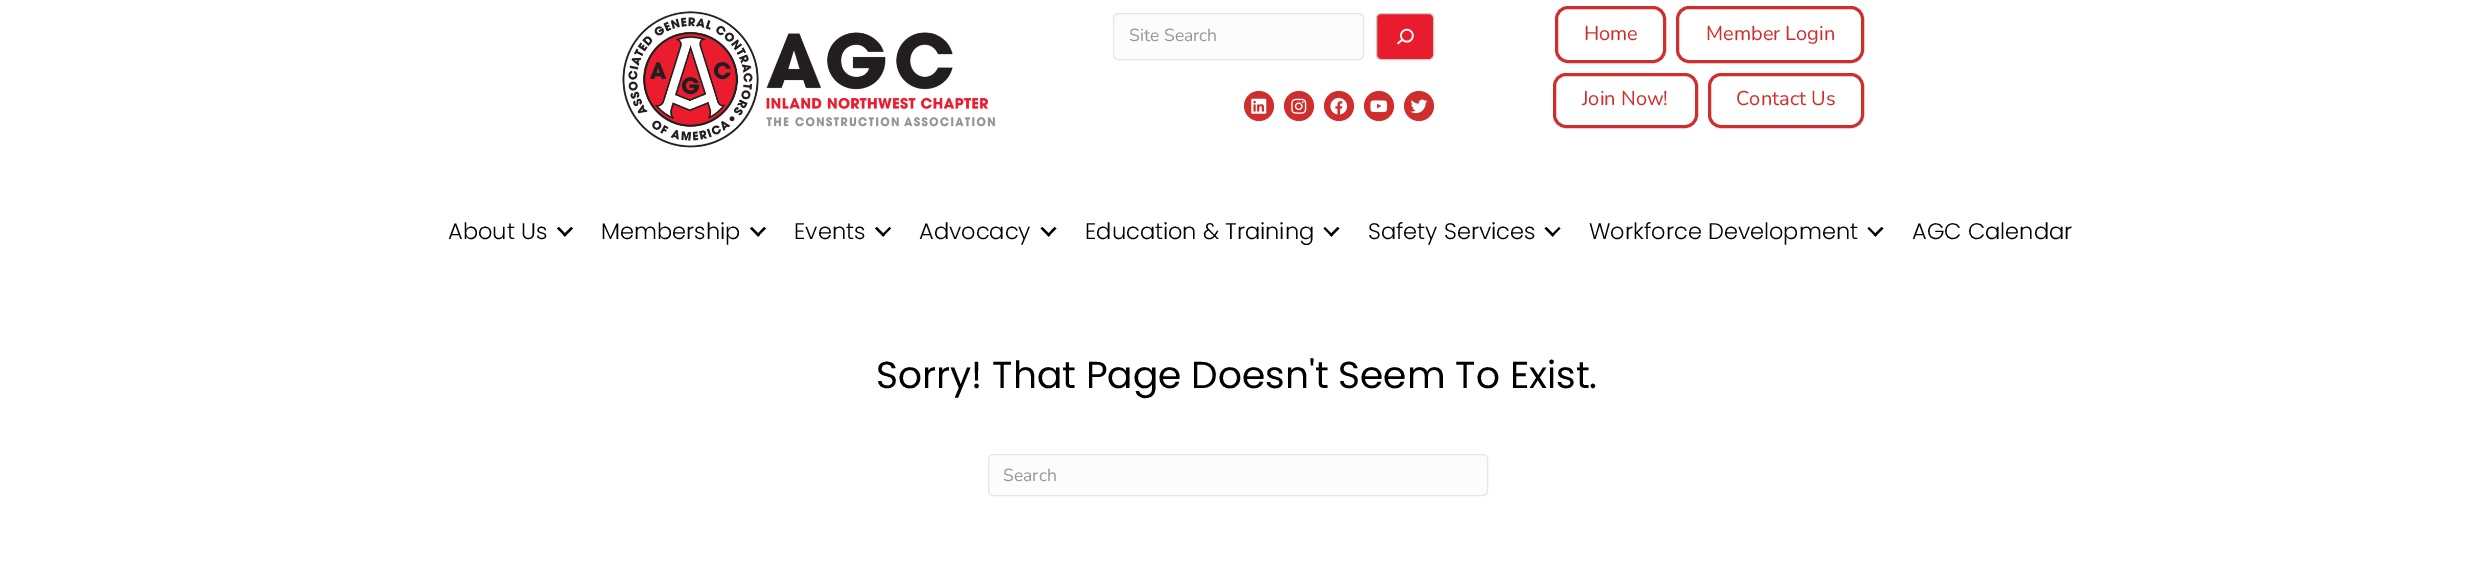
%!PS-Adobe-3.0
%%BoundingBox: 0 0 2473 571
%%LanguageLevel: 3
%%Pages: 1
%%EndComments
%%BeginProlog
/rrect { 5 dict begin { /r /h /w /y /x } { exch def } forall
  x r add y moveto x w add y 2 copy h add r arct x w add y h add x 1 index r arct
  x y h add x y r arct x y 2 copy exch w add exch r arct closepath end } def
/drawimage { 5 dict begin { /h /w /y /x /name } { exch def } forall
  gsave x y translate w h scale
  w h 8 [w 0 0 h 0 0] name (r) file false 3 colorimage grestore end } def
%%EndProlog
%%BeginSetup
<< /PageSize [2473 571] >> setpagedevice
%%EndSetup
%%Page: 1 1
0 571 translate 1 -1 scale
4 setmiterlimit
1 setgray
0 0 2473 571 rectfill
(images/1.raw) 622 11 374 137 drawimage
0.988 setgray
1113.5 13.5 250 46 4.5 rrect gsave fill grestore
0.902 setgray
stroke
0.914 0.11 0.176 setrgbcolor
1376.5 13.5 57 46 4.5 rrect gsave fill grestore
0.8 setgray
stroke
(images/2.raw) 1397 28 17 17 drawimage
0.812 0.18 0.18 setrgbcolor
newpath 1259 106 15 0 360 arc closepath fill
(images/3.raw) 1251 98 16 16 drawimage
newpath 1299 106 15 0 360 arc closepath fill
(images/4.raw) 1291 98 16 16 drawimage
newpath 1339 106 15 0 360 arc closepath fill
(images/5.raw) 1330 97 18 18 drawimage
newpath 1379 106 15 0 360 arc closepath fill
(images/6.raw) 1370 100 18 13 drawimage
newpath 1419 106 15 0 360 arc closepath fill
(images/7.raw) 1410 99 18 15 drawimage
3 setlinewidth
1556.5 7.5 108 54 11.5 rrect stroke
1677.5 7.5 185 54 11.5 rrect stroke
1554.5 74.5 142 52 11.5 rrect stroke
1709.5 74.5 153 52 11.5 rrect stroke
0 setgray
newpath 571 227 moveto 573 228.5 lineto 565 236.5 lineto 563 235 lineto closepath fill
newpath 559 227 moveto 566.5 235 lineto 565 236.5 lineto 557 228.5 lineto closepath fill
newpath 764 227 moveto 766 228.5 lineto 758 236.5 lineto 756.5 235 lineto closepath fill
newpath 752 227 moveto 760 235 lineto 758 236.5 lineto 750 228.5 lineto closepath fill
newpath 889.5 227 moveto 891 228.5 lineto 883 236.5 lineto 881.5 235 lineto closepath fill
newpath 877 227 moveto 885 235 lineto 883 236.5 lineto 875 228.5 lineto closepath fill
newpath 1054.5 227 moveto 1056.5 228.5 lineto 1048.5 236.5 lineto 1047 235 lineto closepath fill
newpath 1042.5 227 moveto 1050.5 235 lineto 1048.5 236.5 lineto 1040.5 228.5 lineto closepath fill
newpath 1337.5 227 moveto 1339.5 228.5 lineto 1331.5 236.5 lineto 1329.5 235 lineto closepath fill
newpath 1325 227 moveto 1333 235 lineto 1331.5 236.5 lineto 1323.5 228.5 lineto closepath fill
newpath 1559 227 moveto 1560.5 228.5 lineto 1552.5 236.5 lineto 1551 235 lineto closepath fill
newpath 1546.5 227 moveto 1554.5 235 lineto 1552.5 236.5 lineto 1544.5 228.5 lineto closepath fill
newpath 1881.5 227 moveto 1883.5 228.5 lineto 1875.5 236.5 lineto 1873.5 235 lineto closepath fill
newpath 1869 227 moveto 1877 235 lineto 1875.5 236.5 lineto 1867.5 228.5 lineto closepath fill
0.988 setgray
988.5 454.5 499 41 4.5 rrect gsave fill grestore
0.902 setgray
1 setlinewidth
stroke
/Nunito-Regular [17.5 0 0 -17.5 0 0] selectfont
0.592 setgray
1129 41 moveto (Site Search) show
/Nunito-Regular [20 0 0 -20 0 0] selectfont
0.812 0.18 0.18 setrgbcolor
1584 40 moveto (Home) show
1706 40 moveto (Member Login) show
1582 105 moveto (Join Now!) show
1736 105 moveto (Contact Us) show
/Poppins-Light [22.5 0 0 -22.5 0 0] selectfont
0 setgray
448 239 moveto (About Us) show
601 239 moveto (Membership) show
794 239 moveto (Events) show
919 239 moveto (Advocacy) show
1085 239 moveto (Education & Training) show
1368 239 moveto (Safety Services) show
1589 239 moveto (Workforce Development) show
1912 239 moveto (AGC Calendar) show
/Poppins-Regular [37.5 0 0 -37.5 0 0] selectfont
876 388 moveto (Sorry! That Page Doesn't Seem To Exist.) show
/Nunito-Regular [17.5 0 0 -17.5 0 0] selectfont
0.592 setgray
1003 481 moveto (Search) show
showpage
%%EOF
